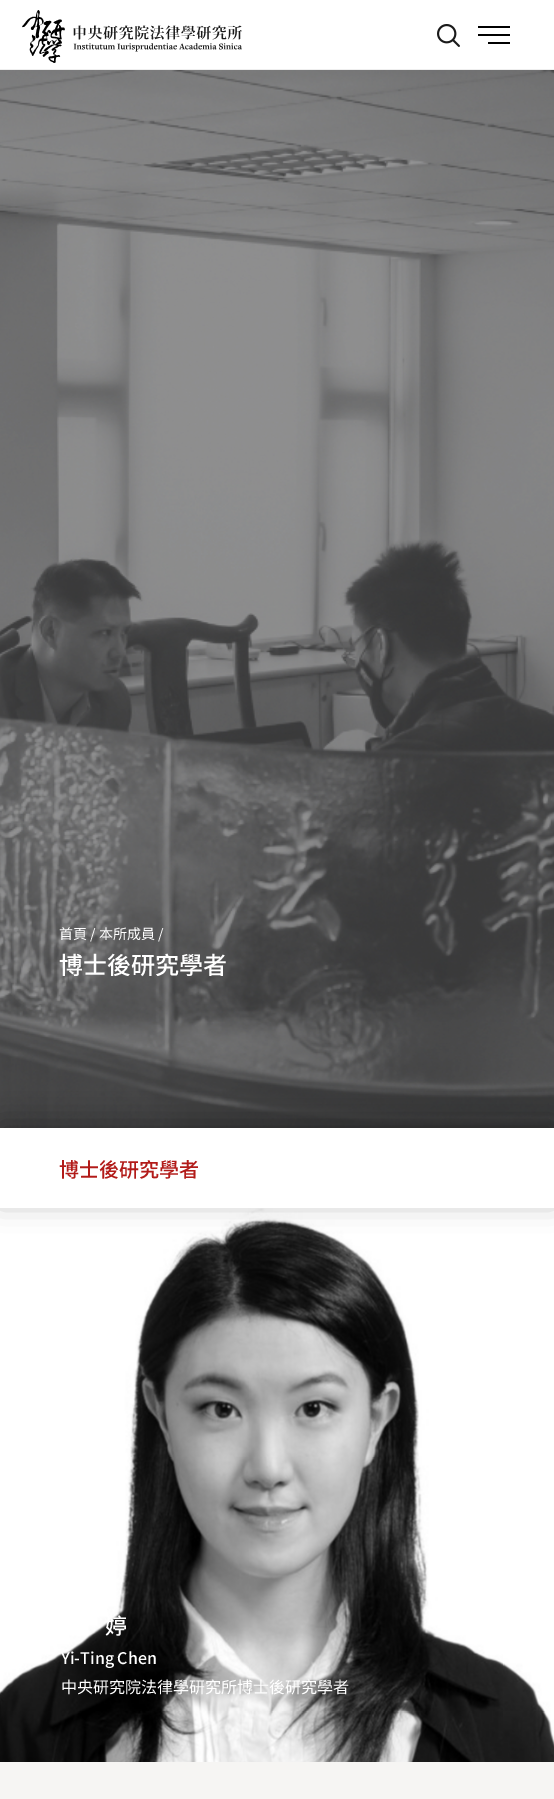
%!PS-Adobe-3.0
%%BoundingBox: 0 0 554 1799
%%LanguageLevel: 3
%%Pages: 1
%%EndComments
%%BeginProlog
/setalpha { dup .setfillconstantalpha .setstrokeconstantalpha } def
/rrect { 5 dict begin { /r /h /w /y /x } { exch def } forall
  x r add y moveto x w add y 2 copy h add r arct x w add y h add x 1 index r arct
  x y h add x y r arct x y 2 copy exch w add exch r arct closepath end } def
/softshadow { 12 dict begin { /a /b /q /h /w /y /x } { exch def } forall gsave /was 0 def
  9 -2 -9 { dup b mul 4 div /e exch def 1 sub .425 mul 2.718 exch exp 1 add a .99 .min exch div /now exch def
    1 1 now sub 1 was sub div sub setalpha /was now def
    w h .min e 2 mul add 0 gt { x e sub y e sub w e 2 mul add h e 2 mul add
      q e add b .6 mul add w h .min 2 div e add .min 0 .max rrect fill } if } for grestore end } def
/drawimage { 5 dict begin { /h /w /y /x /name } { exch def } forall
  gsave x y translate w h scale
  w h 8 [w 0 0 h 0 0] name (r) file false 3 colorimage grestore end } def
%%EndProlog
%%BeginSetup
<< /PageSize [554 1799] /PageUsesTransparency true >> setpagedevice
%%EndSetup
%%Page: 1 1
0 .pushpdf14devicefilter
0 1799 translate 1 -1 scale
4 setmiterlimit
0.965 0.961 0.953 setrgbcolor
0 0 554 1799 rectfill
1 setgray
0 0 554 69 rectfill
0.933 setgray
0 69 554 1 rectfill
(images/1.raw) 22 10 220 53 drawimage
(images/2.raw) 437 24 23 23 drawimage
0 setgray
478 26 32 2 rectfill
478 34 32 2 rectfill
488 42 22 2 rectfill
(images/3.raw) 0 70 554 1058 drawimage
(images/4.raw) 0 1208 554 554 drawimage
0 1122 554 80 0 14 0.3 softshadow
1 setgray
0 1128 554 80 rectfill
/NotoSansTC-Regular [14 0 0 -14 0 0] selectfont
59 939 moveto (首頁 / 本所成員 /) show
/NotoSansTC-Medium [24 0 0 -24 0 0] selectfont
59 974 moveto (博士後研究學者) show
/NotoSansTC-Medium [20 0 0 -20 0 0] selectfont
0.698 0.106 0.098 setrgbcolor
59 1177 moveto (博士後研究學者) show
/NotoSansTC-Medium [22 0 0 -22 0 0] selectfont
1 setgray
105 1634 moveto (婷) show
/NotoSansTC-Medium [16 0 0 -16 0 0] selectfont
61 1664 moveto (Yi-Ting Chen) show
/NotoSansTC-Regular [16 0 0 -16 0 0] selectfont
61 1693 moveto (中央研究院法律學研究所博士後研究學者) show
.poppdf14devicefilter showpage
%%EOF
